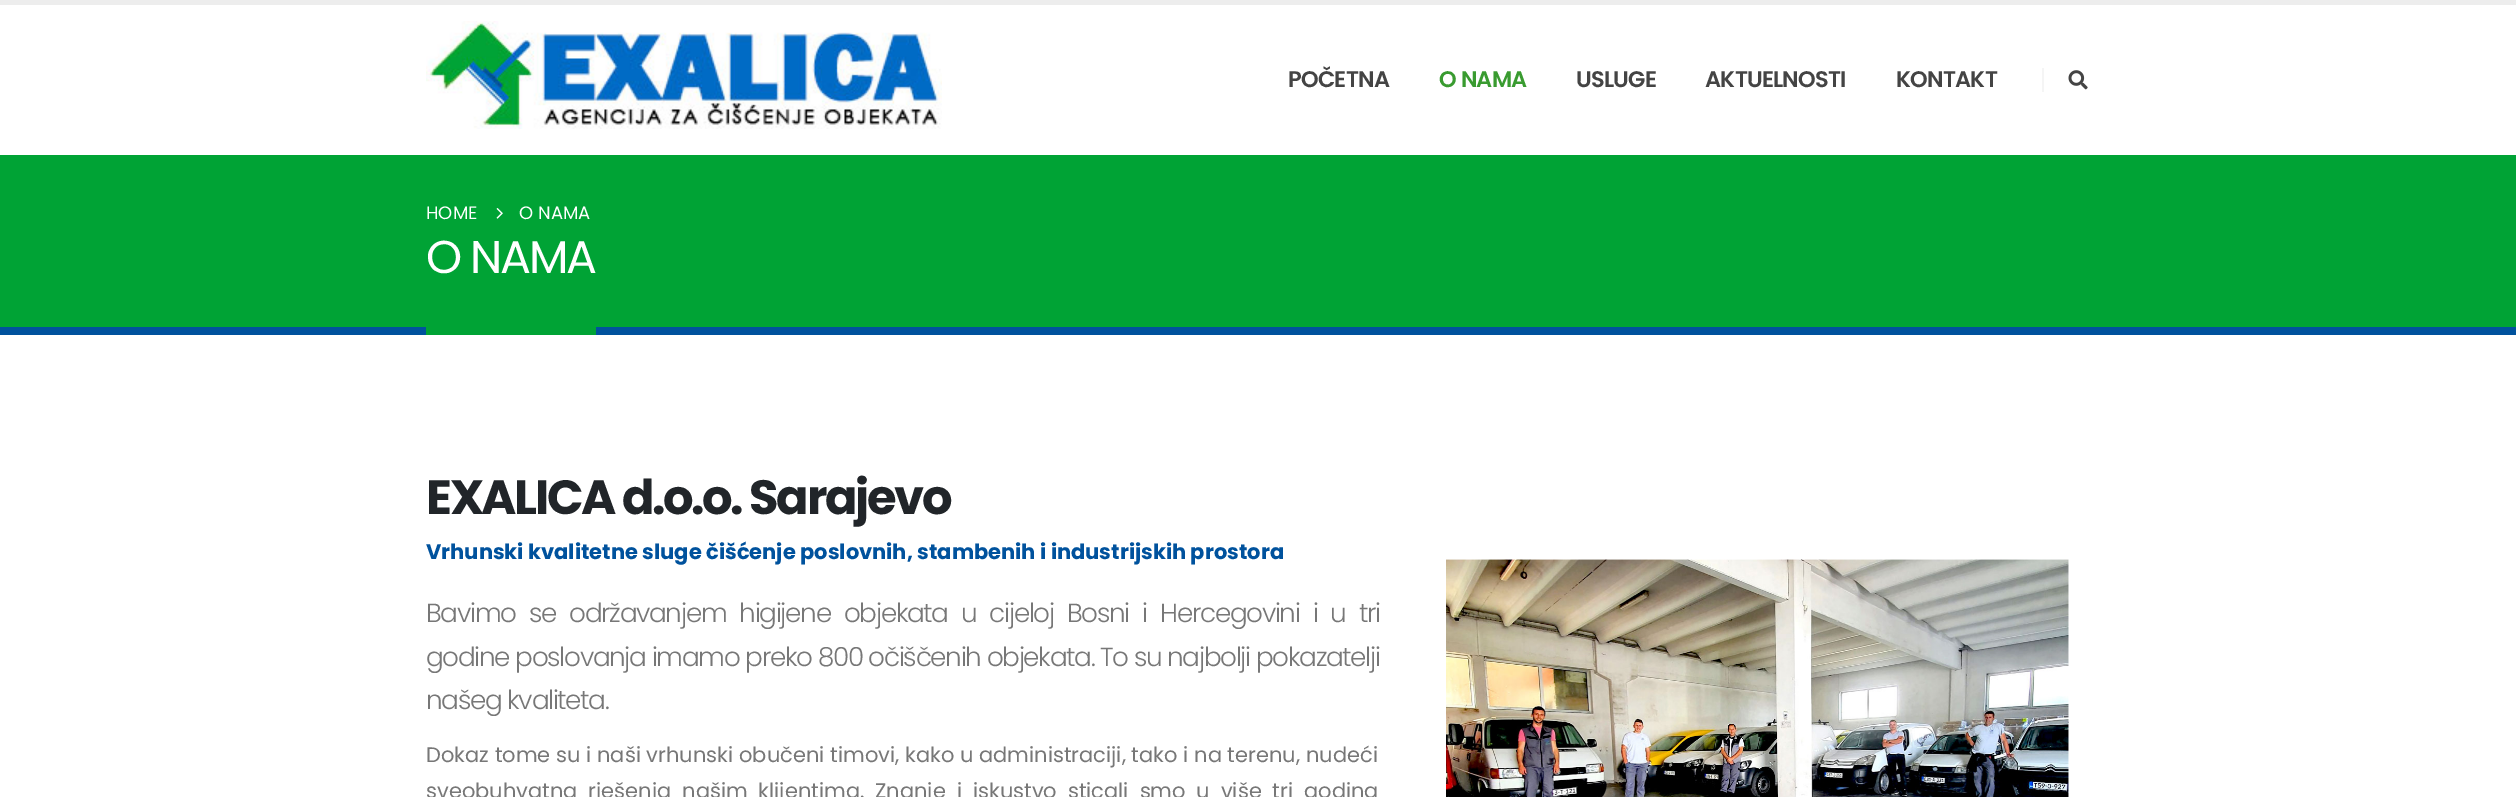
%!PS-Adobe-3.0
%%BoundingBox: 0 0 2516 797
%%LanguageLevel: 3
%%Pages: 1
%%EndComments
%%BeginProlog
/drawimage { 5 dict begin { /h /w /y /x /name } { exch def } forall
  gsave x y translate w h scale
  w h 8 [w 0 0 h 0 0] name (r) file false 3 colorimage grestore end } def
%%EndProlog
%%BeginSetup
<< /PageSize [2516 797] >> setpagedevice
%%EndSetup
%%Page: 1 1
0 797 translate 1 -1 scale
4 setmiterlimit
1 setgray
0 0 2516 797 rectfill
0.929 setgray
0 0 2516 5 rectfill
(images/1.raw) 426 21 516 108 drawimage
0.961 setgray
2042 68 2 24 rectfill
(images/2.raw) 2068 70 20 20 drawimage
0 0.639 0.208 setrgbcolor
0 155 2516 172 rectfill
0 0.322 0.616 setrgbcolor
0 327 2516 8 rectfill
(images/3.raw) 496 208 7 11 drawimage
0 0.639 0.208 setrgbcolor
426 327 170 8 rectfill
(images/4.raw) 1446 559 623 238 drawimage
/Poppins-SemiBold [22.5 0 0 -22.5 0 0] selectfont
0.267 setgray
1288 87 moveto -0.75 0 (POČETNA) ashow
0.224 0.608 0.188 setrgbcolor
1439 87 moveto -0.75 0 (O NAMA) ashow
0.267 setgray
1576 87 moveto -0.75 0 (USLUGE) ashow
1705 87 moveto -0.75 0 (AKTUELNOSTI) ashow
1896 87 moveto -0.75 0 (KONTAKT) ashow
/Poppins-Regular [18 0 0 -18 0 0] selectfont
1 setgray
426 219 moveto (HOME) show
519 219 moveto (O NAMA) show
/Poppins-Regular [46 0 0 -46 0 0] selectfont
426 273 moveto -2.25 0 (O NAMA) ashow
/Poppins-Bold [48 0 0 -48 0 0] selectfont
0.129 0.145 0.161 setrgbcolor
426 514 moveto -2.4 0 (EXALICA d.o.o. Sarajevo) ashow
/Poppins-Bold [21 0 0 -21 0 0] selectfont
0 0.322 0.616 setrgbcolor
426 559 moveto (Vrhunski kvalitetne sluge čišćenje poslovnih, stambenih i industrijskih prostora) show
/Poppins-Light [26.25 0 0 -26.25 0 0] selectfont
0.467 setgray
426 622 moveto 7.25 0 32 -1.3 0 (Bavimo se održavanjem higijene objekata u cijeloj Bosni i Hercegovini i u tri) awidthshow
426 666 moveto -1.3 0 (godine poslovanja imamo preko 800 očiščenih objekata. To su najbolji pokazatelji) ashow
426 709 moveto -1.3 0 (našeg kvaliteta.) ashow
/Poppins-Regular [21 0 0 -21 0 0] selectfont
426 762 moveto 0.1 0 32 (Dokaz tome su i naši vrhunski obučeni timovi, kako u administraciji, tako i na terenu, nudeći) widthshow
426 798 moveto 5.25 0 32 (sveobuhvatna rješenja našim klijentima. Znanje i iskustvo sticali smo u više tri godina) widthshow
showpage
%%EOF
